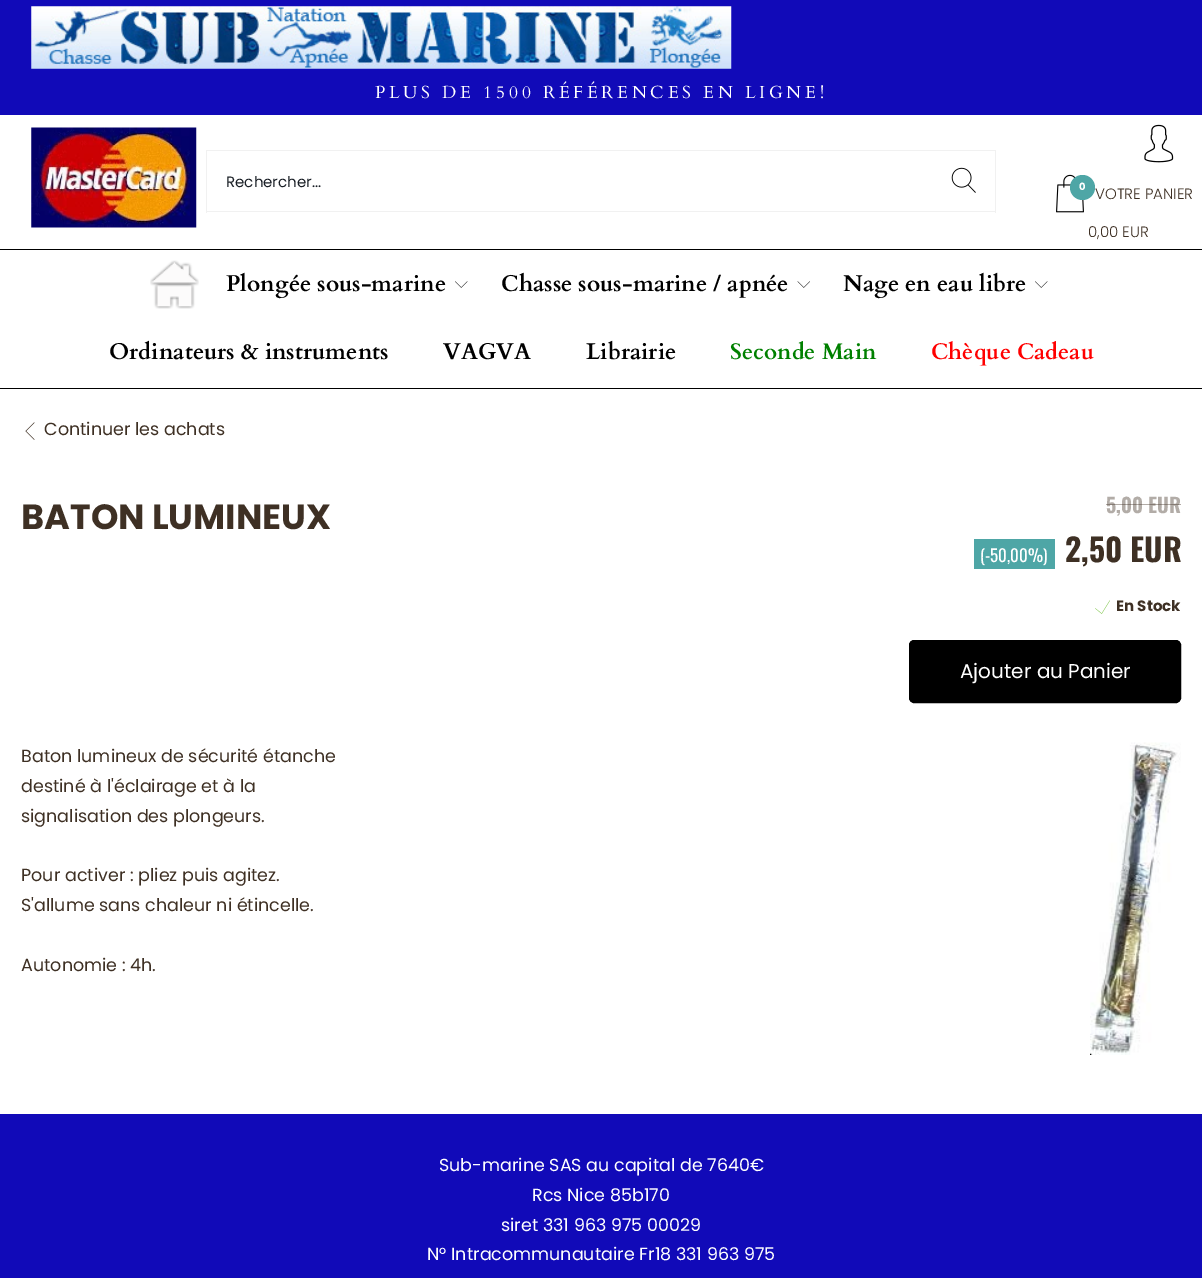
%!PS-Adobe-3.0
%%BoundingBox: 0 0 1202 1278
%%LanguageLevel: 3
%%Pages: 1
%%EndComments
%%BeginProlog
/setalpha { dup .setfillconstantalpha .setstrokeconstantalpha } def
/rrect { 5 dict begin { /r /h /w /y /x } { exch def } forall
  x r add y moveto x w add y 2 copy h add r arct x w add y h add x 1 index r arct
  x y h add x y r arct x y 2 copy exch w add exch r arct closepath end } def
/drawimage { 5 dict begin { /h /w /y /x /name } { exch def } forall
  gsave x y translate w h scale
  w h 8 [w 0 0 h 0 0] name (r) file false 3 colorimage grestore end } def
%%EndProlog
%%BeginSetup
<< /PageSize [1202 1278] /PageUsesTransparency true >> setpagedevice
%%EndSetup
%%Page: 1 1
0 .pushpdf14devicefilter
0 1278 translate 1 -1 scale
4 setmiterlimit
1 setgray
0 0 1202 1278 rectfill
0.067 0.039 0.722 setrgbcolor
0 0 1202 115 rectfill
(images/1.raw) 31 6 701 63 drawimage
(images/2.raw) 31 127 166 101 drawimage
0.945 setgray
206 150 790 1 rectfill
206 211 727 1 rectfill
206 150 1 63 rectfill
995 150 1 63 rectfill
933 211 63 1 rectfill
(images/3.raw) 951 167 25 26 drawimage
(images/4.raw) 1144 124 30 39 drawimage
(images/5.raw) 1056 174 28 39 drawimage
0 setgray
0 249 1202 1 rectfill
0 388 1202 1 rectfill
(images/6.raw) 150 260 49 49 drawimage
(images/7.raw) 455 281 13 7 drawimage
(images/8.raw) 797 281 13 7 drawimage
(images/7.raw) 1035 281 13 7 drawimage
(images/9.raw) 25 422 10 18 drawimage
0.306 0.651 0.651 setrgbcolor
974 539 81 30 rectfill
(images/10.raw) 1095 600 15 14 drawimage
0 setgray
909.5 640.5 271 62 4.5 rrect gsave fill grestore
stroke
(images/11.raw) 1090 742 91 313 drawimage
0.067 0.039 0.722 setrgbcolor
0 1114 1202 164 rectfill
/Cardo-Regular [17.5 0 0 -17.5 0 0] selectfont
1 setgray
375 98 moveto 3.75 0 (PLUS DE 1500 RÉFÉRENCES EN LIGNE!) ashow
/Poppins-Regular [15 0 0 -15 0 0] selectfont
0.102 0.122 0.149 setrgbcolor
226 187 moveto (Rechercher...) show
/Poppins-Light [15 0 0 -15 0 0] selectfont
0.243 0.188 0.141 setrgbcolor
1088 237 moveto (0,00 EUR) show
1095 199 moveto (VOTRE PANIER) show
0.306 0.651 0.651 setrgbcolor
newpath 1082.5 187.5 12.5 0 360 arc closepath fill
/Poppins-Bold [10 0 0 -10 0 0] selectfont
1 setgray
1079 190 moveto (0) show
/Cardo-Bold [22.75 0 0 -22.75 0 0] selectfont
0 setgray
226 291 moveto (Plongée sous-marine) show
501 291 moveto (Chasse sous-marine / apnée) show
843 291 moveto (Nage en eau libre) show
109 359 moveto (Ordinateurs & instruments) show
443 359 moveto (VAGVA) show
586 359 moveto (Librairie) show
/Cardo-Bold [22.5 0 0 -22.5 0 0] selectfont
0 0.502 0 setrgbcolor
730 359 moveto (Seconde Main) show
1 0 0 setrgbcolor
931 359 moveto (Chèque Cadeau) show
/Poppins-Regular [17.5 0 0 -17.5 0 0] selectfont
0.243 0.188 0.141 setrgbcolor
44 435 moveto (Continuer les achats) show
/Poppins-Bold [35 0 0 -35 0 0] selectfont
21 529 moveto (BATON LUMINEUX) show
/Oswald-Bold [20 0 0 -20 0 0] selectfont
0.698 0.675 0.655 setrgbcolor
1106 513 moveto (5,00 EUR) show
0.4 setalpha
0.243 0.188 0.141 setrgbcolor
1106 504 75 1 rectfill
/Oswald-Regular [17 0 0 -17 0 0] selectfont
1 setalpha
1 setgray
980 562 moveto (\(-50,00%\)) show
/Oswald-Bold [31.5 0 0 -31.5 0 0] selectfont
0.243 0.188 0.141 setrgbcolor
1065 562 moveto (2,50 EUR) show
/Poppins-Bold [15 0 0 -15 0 0] selectfont
1116 611 moveto (En Stock) show
/Poppins-Regular [20 0 0 -20 0 0] selectfont
1 setgray
960 678 moveto (Ajouter au Panier) show
/Poppins-Regular [17.5 0 0 -17.5 0 0] selectfont
0.243 0.188 0.141 setrgbcolor
21 762 moveto (Baton lumineux de sécurité étanche) show
21 792 moveto (destiné à l'éclairage et à la) show
21 822 moveto (signalisation des plongeurs.) show
21 881 moveto (Pour activer : pliez puis agitez.) show
21 911 moveto (S'allume sans chaleur ni étincelle.) show
21 971 moveto (Autonomie : 4h.) show
1 setgray
439 1171 moveto (Sub-marine SAS au capital de 7640€) show
532 1201 moveto (Rcs Nice 85b170) show
501 1231 moveto (siret 331 963 975 00029) show
427 1260 moveto (N° Intracommunautaire Fr18 331 963 975) show
.poppdf14devicefilter showpage
%%EOF
